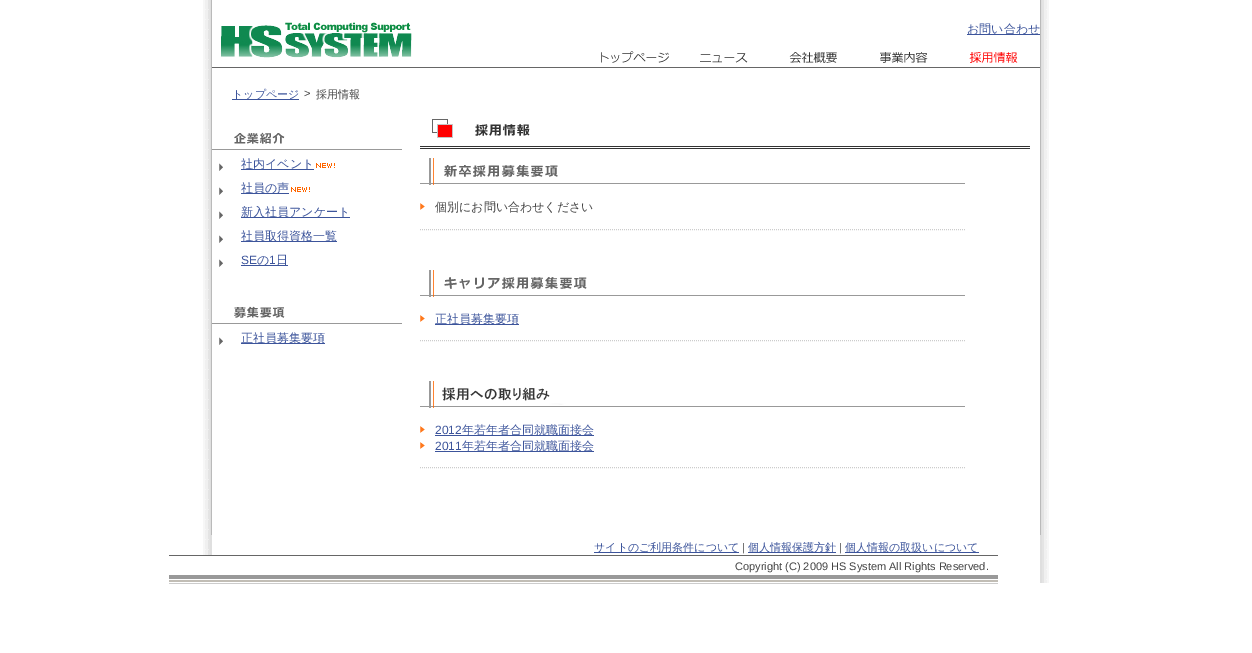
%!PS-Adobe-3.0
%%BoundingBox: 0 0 1252 653
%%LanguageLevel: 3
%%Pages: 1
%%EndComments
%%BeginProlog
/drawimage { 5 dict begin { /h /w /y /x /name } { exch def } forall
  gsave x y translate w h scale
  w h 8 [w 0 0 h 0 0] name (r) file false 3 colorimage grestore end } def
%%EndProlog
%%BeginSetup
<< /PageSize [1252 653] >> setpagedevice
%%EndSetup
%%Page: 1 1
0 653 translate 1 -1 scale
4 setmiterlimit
1 setgray
0 0 1252 653 rectfill
(images/1.raw) 203 0 846 583 drawimage
0.729 setgray
1040 0 1 535 rectfill
211 0 1 535 rectfill
(images/2.raw) 212 22 378 46 drawimage
0.235 0.329 0.608 setrgbcolor
967 34 73 1 rectfill
(images/3.raw) 590 51 90 17 drawimage
(images/4.raw) 680 53 90 15 drawimage
(images/5.raw) 770 52 90 16 drawimage
(images/6.raw) 860 52 90 16 drawimage
(images/7.raw) 950 52 90 16 drawimage
232 99 67 1 rectfill
(images/8.raw) 212 132 190 18 drawimage
(images/9.raw) 219 163 4 8 drawimage
241 169 73 1 rectfill
(images/10.raw) 316 163 19 5 drawimage
(images/9.raw) 219 187 4 8 drawimage
241 193 48 1 rectfill
(images/10.raw) 291 187 19 5 drawimage
(images/9.raw) 219 211 4 8 drawimage
241 217 109 1 rectfill
(images/9.raw) 219 235 4 8 drawimage
241 241 96 1 rectfill
(images/9.raw) 219 259 4 8 drawimage
241 265 47 1 rectfill
(images/11.raw) 212 306 190 18 drawimage
(images/9.raw) 219 337 4 8 drawimage
241 343 84 1 rectfill
(images/12.raw) 420 119 610 30 drawimage
(images/13.raw) 420 158 545 27 drawimage
0.8 setgray
[1 1] 0 setdash
newpath 420 229.5 moveto 965 229.5 lineto stroke
(images/14.raw) 420 203 5 7 drawimage
(images/15.raw) 420 270 545 27 drawimage
newpath 420 340.5 moveto 965 340.5 lineto stroke
(images/14.raw) 420 315 5 7 drawimage
0.235 0.329 0.608 setrgbcolor
435 324 84 1 rectfill
(images/16.raw) 420 381 545 27 drawimage
0.8 setgray
newpath 420 467.5 moveto 965 467.5 lineto stroke
(images/14.raw) 420 426 5 7 drawimage
0.235 0.329 0.608 setrgbcolor
435 435 159 1 rectfill
(images/14.raw) 420 442 5 7 drawimage
435 451 159 1 rectfill
594 552 145 1 rectfill
748 552 88 1 rectfill
845 552 134 1 rectfill
(images/17.raw) 169 555 829 29 drawimage
/WenQuanYiZenHei-Medium [12 0 0 -12 0 0] selectfont
967 33 moveto (お問い合わせ) show
/WenQuanYiZenHei-Medium [11 0 0 -11 0 0] selectfont
232 98 moveto (トップページ) show
/LiberationSans-Regular [11 0 0 -11 0 0] selectfont
0.267 setgray
304 97 moveto (>) show
/WenQuanYiZenHei-Medium [11 0 0 -11 0 0] selectfont
316 98 moveto (採用情報) show
/WenQuanYiZenHei-Medium [12 0 0 -12 0 0] selectfont
0.235 0.329 0.608 setrgbcolor
241 168 moveto (社内イベント) show
241 192 moveto (社員の声) show
241 216 moveto (新入社員アンケート) show
241 240 moveto (社員取得資格一覧) show
/LiberationSans-Regular [12 0 0 -12 0 0] selectfont
241 264 moveto (SE) show
/WenQuanYiZenHei-Medium [12 0 0 -12 0 0] selectfont
257 264 moveto (の) show
/LiberationSans-Regular [12 0 0 -12 0 0] selectfont
269 264 moveto (1) show
/WenQuanYiZenHei-Medium [12 0 0 -12 0 0] selectfont
276 264 moveto (日) show
241 342 moveto (正社員募集要項) show
0.267 setgray
435 211 moveto (個別にお問い合わせください) show
0.235 0.329 0.608 setrgbcolor
435 323 moveto (正社員募集要項) show
/LiberationSans-Regular [12 0 0 -12 0 0] selectfont
435 434 moveto (2012) show
/WenQuanYiZenHei-Medium [12 0 0 -12 0 0] selectfont
462 434 moveto (年若年者合同就職面接会) show
/LiberationSans-Regular [12 0 0 -12 0 0] selectfont
435 450 moveto (2011) show
/WenQuanYiZenHei-Medium [12 0 0 -12 0 0] selectfont
462 450 moveto (年若年者合同就職面接会) show
/WenQuanYiZenHei-Medium [11 0 0 -11 0 0] selectfont
594 551 moveto (サイトのご利用条件について) show
/LiberationSans-Regular [11 0 0 -11 0 0] selectfont
0.267 setgray
742 551 moveto (|) show
/WenQuanYiZenHei-Medium [11 0 0 -11 0 0] selectfont
0.235 0.329 0.608 setrgbcolor
748 551 moveto (個人情報保護方針) show
/LiberationSans-Regular [11 0 0 -11 0 0] selectfont
0.267 setgray
839 551 moveto (|) show
/WenQuanYiZenHei-Medium [11 0 0 -11 0 0] selectfont
0.235 0.329 0.608 setrgbcolor
845 551 moveto (個人情報の取扱いについて) show
/LiberationSans-Regular [11 0 0 -11 0 0] selectfont
0.267 setgray
735 570 moveto (Copyright \(C\) 2009 HS System All Rights Reserved.) show
showpage
%%EOF
